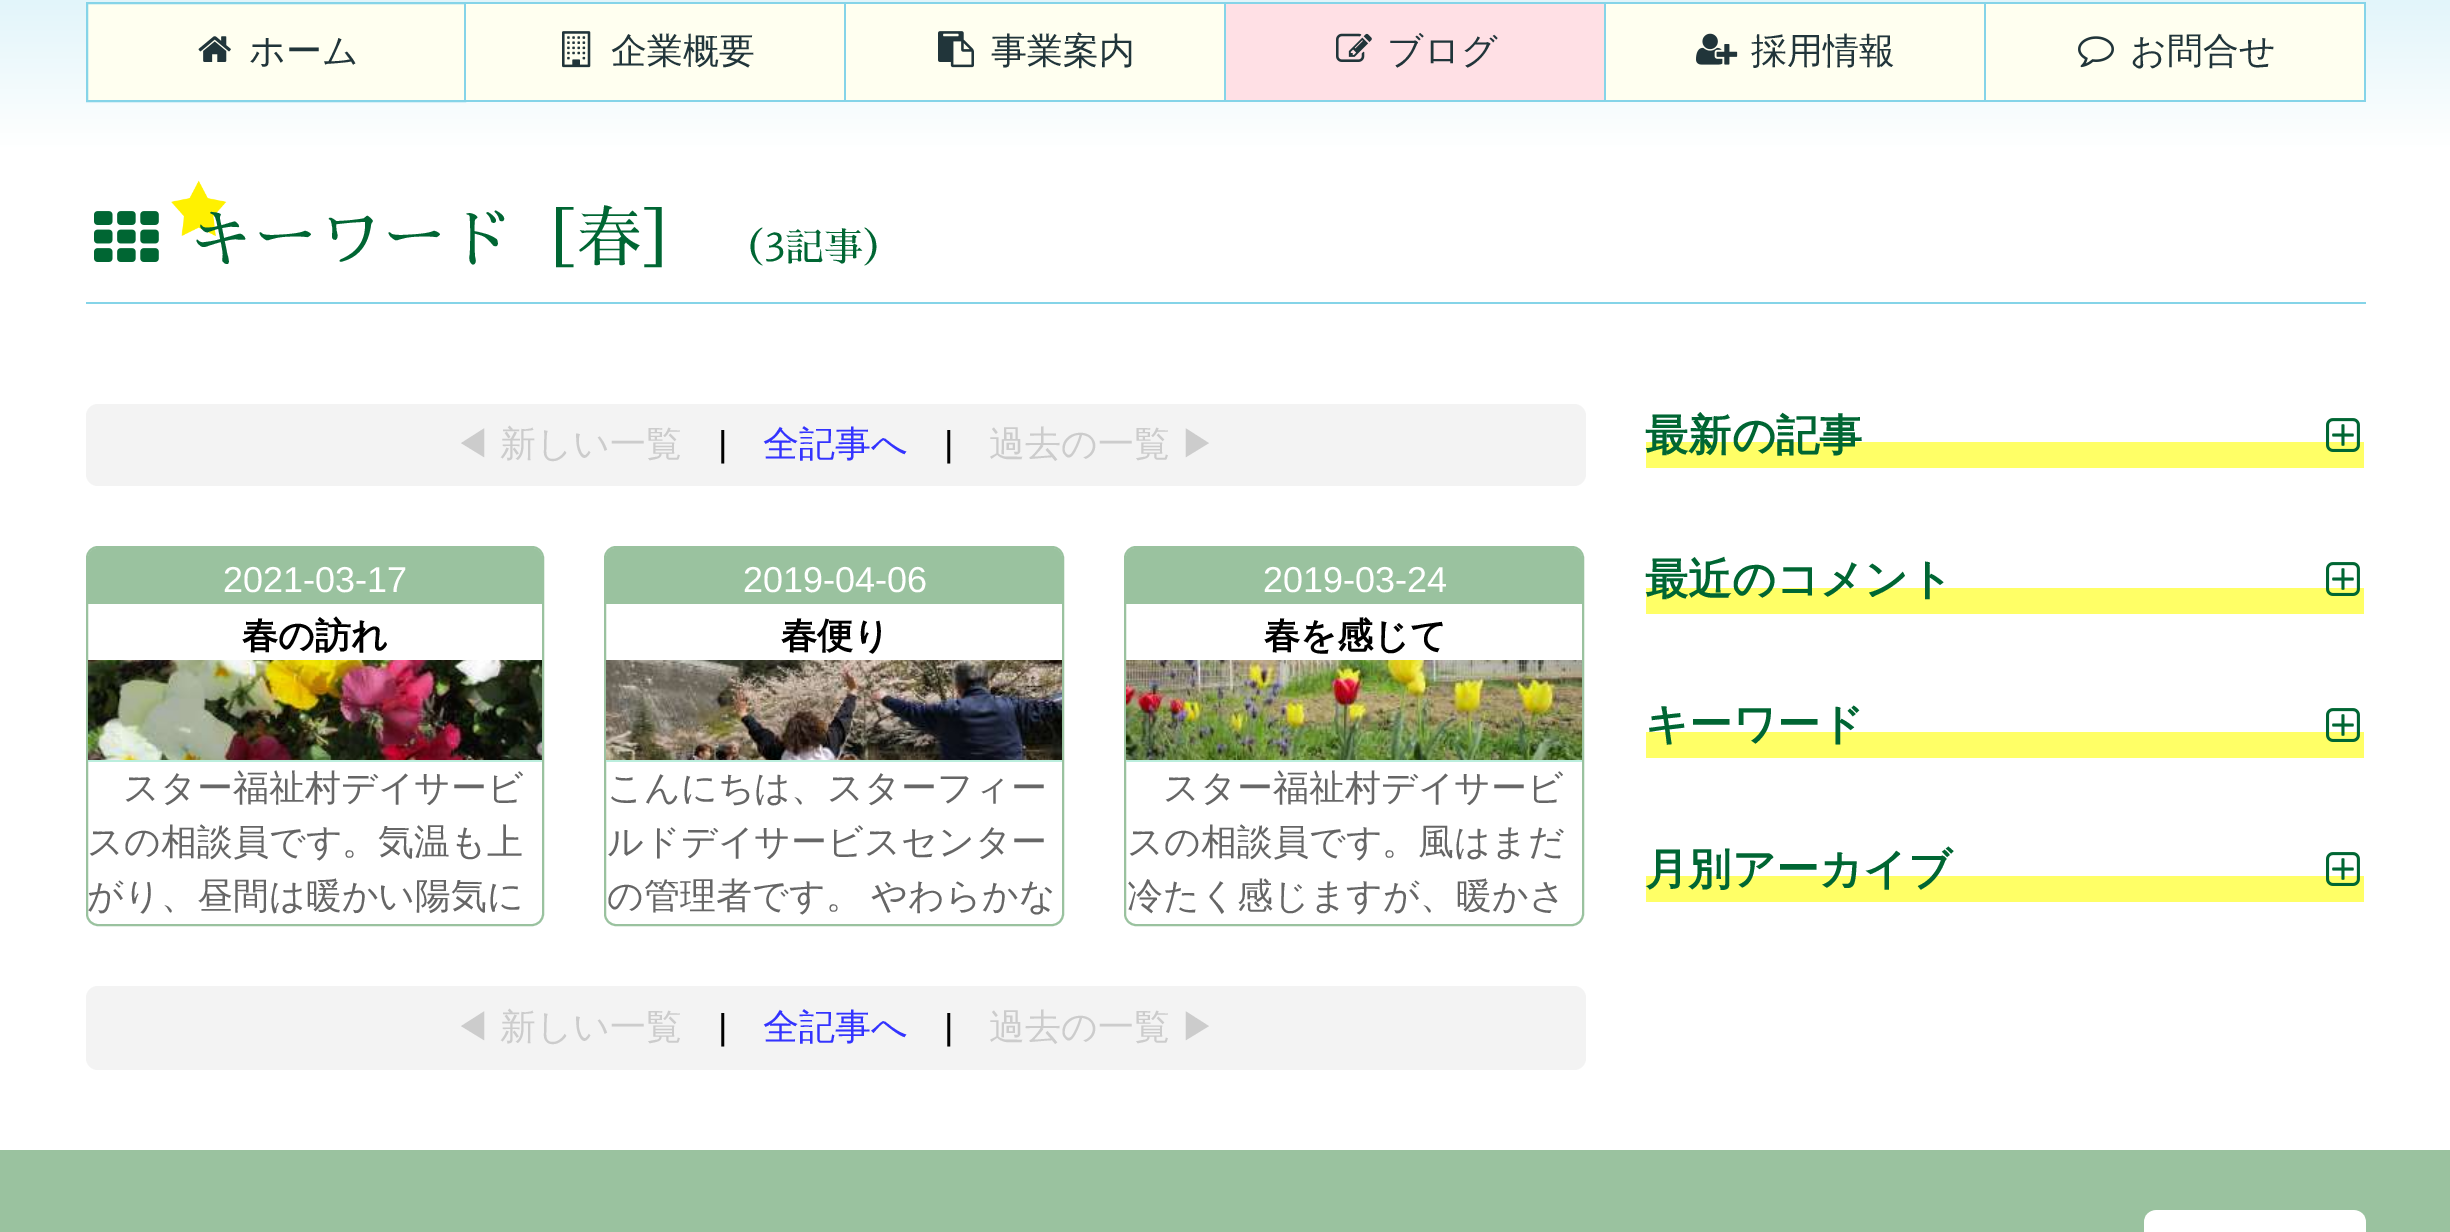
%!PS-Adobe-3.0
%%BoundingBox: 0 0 2450 1232
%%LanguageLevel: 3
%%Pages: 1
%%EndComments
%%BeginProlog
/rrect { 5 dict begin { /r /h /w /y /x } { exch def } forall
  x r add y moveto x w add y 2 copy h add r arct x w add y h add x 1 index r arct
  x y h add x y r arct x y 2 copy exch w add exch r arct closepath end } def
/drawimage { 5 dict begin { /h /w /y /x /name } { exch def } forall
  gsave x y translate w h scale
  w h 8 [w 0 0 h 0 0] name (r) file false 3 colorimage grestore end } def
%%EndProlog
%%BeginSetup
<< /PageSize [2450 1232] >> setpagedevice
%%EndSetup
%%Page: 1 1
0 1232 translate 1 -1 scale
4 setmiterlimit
0.604 0.761 0.624 setrgbcolor
0 0 2450 1232 rectfill
gsave newpath 0 0 moveto 2450 0 lineto 2450 178 lineto 0 178 lineto closepath clip newpath
<< /ShadingType 2 /ColorSpace /DeviceRGB /Coords [1225 -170 1225 178] /Extend [true true] /Function << /FunctionType 3 /Domain [0 1] /Functions [<< /FunctionType 2 /Domain [0 1] /C0 [0.761 0.918 0.957] /C1 [1 1 1] /N 1 >> << /FunctionType 2 /Domain [0 1] /C0 [1 1 1] /C1 [1 1 1] /N 1 >>] /Bounds [0.92] /Encode [0 1 0 1] >> >> shfill grestore
1 1 0.941 setrgbcolor
newpath 87 3 moveto 465 3 lineto 465 101 lineto 87 101 lineto closepath gsave fill grestore
0.522 0.831 0.91 setrgbcolor
2 setlinewidth
stroke
(images/1.raw) 198 36 33 26 drawimage
1 1 0.941 setrgbcolor
466 4 378 96 rectfill
0.522 0.831 0.91 setrgbcolor
466 2 1900 2 rectfill
844 2 2 100 rectfill
466 100 380 2 rectfill
(images/2.raw) 562 31 29 37 drawimage
1 1 0.941 setrgbcolor
846 4 378 96 rectfill
0.522 0.831 0.91 setrgbcolor
1224 2 2 100 rectfill
846 100 380 2 rectfill
(images/3.raw) 938 31 36 37 drawimage
1 0.878 0.898 setrgbcolor
1226 4 378 96 rectfill
0.522 0.831 0.91 setrgbcolor
1604 2 2 100 rectfill
1226 100 380 2 rectfill
(images/4.raw) 1336 33 36 29 drawimage
1 1 0.941 setrgbcolor
1606 4 378 96 rectfill
0.522 0.831 0.91 setrgbcolor
1984 2 2 100 rectfill
1606 100 380 2 rectfill
(images/5.raw) 1696 33 42 32 drawimage
1 1 0.941 setrgbcolor
1986 4 378 96 rectfill
0.522 0.831 0.91 setrgbcolor
2364 2 2 100 rectfill
1986 100 380 2 rectfill
(images/6.raw) 2078 36 36 32 drawimage
1 setgray
0 178 2450 972 rectfill
(images/7.raw) 171 180 56 56 drawimage
0.522 0.831 0.91 setrgbcolor
86 302 2280 2 rectfill
(images/8.raw) 94 211 65 51 drawimage
0.953 setgray
86 404 1500 82 12 rrect fill
0.604 0.761 0.624 setrgbcolor
87 547 456 378 11 rrect stroke
newpath 98 548 moveto 532 548 lineto 537.5 548 542 552.5 542 558 curveto 542 604 lineto 88 604 lineto 88 558 lineto 88 552.5 92.5 548 98 548 curveto closepath fill
(images/9.raw) 88 660 454 100 drawimage
0.733 0.933 0.867 setrgbcolor
88 760 454 2 rectfill
0.604 0.761 0.624 setrgbcolor
605 547 458 378 11 rrect stroke
newpath 616 548 moveto 1052 548 lineto 1057.5 548 1062 552.5 1062 558 curveto 1062 604 lineto 606 604 lineto 606 558 lineto 606 552.5 610.5 548 616 548 curveto closepath fill
(images/10.raw) 606 660 456 100 drawimage
0.733 0.933 0.867 setrgbcolor
606 760 456 2 rectfill
0.604 0.761 0.624 setrgbcolor
1125 547 458 378 11 rrect stroke
newpath 1136 548 moveto 1572 548 lineto 1577.5 548 1582 552.5 1582 558 curveto 1582 604 lineto 1126 604 lineto 1126 558 lineto 1126 552.5 1130.5 548 1136 548 curveto closepath fill
(images/11.raw) 1126 660 456 100 drawimage
0.733 0.933 0.867 setrgbcolor
1126 760 456 2 rectfill
0.953 setgray
86 986 1500 84 12 rrect fill
1 1 0.4 setrgbcolor
1646 442 718 26 rectfill
(images/12.raw) 2326 418 34 34 drawimage
1646 588 718 26 rectfill
(images/13.raw) 2326 562 34 34 drawimage
1646 732 718 26 rectfill
(images/12.raw) 2326 708 34 34 drawimage
1646 876 718 26 rectfill
(images/12.raw) 2326 852 34 34 drawimage
(images/14.raw) 2144 1210 222 22 drawimage
/WenQuanYiZenHei-Medium [36 0 0 -36 0 0] selectfont
0.129 0.208 0.227 setrgbcolor
249 63 moveto (ホーム) show
611 63 moveto (企業概要) show
991 63 moveto (事業案内) show
1387 63 moveto (ブログ) show
1751 63 moveto (採用情報) show
2130 63 moveto (お問合せ) show
/SawarabiMincho-Regular [64.75 0 0 -64.75 0 0] selectfont
0 0.4 0.2 setrgbcolor
188 261 moveto (キーワード［春］) show
/SawarabiMincho-Regular [39 0 0 -39 0 0] selectfont
725 261 moveto (（3記事）) show
/WenQuanYiZenHei-Medium [36 0 0 -36 0 0] selectfont
0.8 setgray
454 456 moveto -1 0 32 (◀ 新しい) widthshow
610 456 moveto (一覧) show
/LiberationSans-Regular [36 0 0 -36 0 0] selectfont
0 setgray
718 456 moveto (|) show
/WenQuanYiZenHei-Medium [36 0 0 -36 0 0] selectfont
0.2 0.2 1 setrgbcolor
763 456 moveto (全記事へ) show
/LiberationSans-Regular [36 0 0 -36 0 0] selectfont
0 setgray
944 456 moveto (|) show
/WenQuanYiZenHei-Medium [36 0 0 -36 0 0] selectfont
0.8 setgray
989 456 moveto (過去の一覧) show
1180 456 moveto (▶) show
/LiberationSans-Regular [36 0 0 -36 0 0] selectfont
1 setgray
223 592 moveto (2021-03-17) show
/WenQuanYiZenHei-Bold [36 0 0 -36 0 0] selectfont
0 setgray
242 648 moveto (春の訪れ) show
/WenQuanYiZenHei-Medium [36 0 0 -36 0 0] selectfont
0.4 setgray
123 800 moveto (スター福祉村デイサービ) show
87 854 moveto (スの相談員です。気温も上) show
87 908 moveto (がり、昼間は暖かい陽気に) show
/LiberationSans-Regular [36 0 0 -36 0 0] selectfont
1 setgray
743 592 moveto (2019-04-06) show
/WenQuanYiZenHei-Bold [36 0 0 -36 0 0] selectfont
0 setgray
781 648 moveto (春便り) show
/WenQuanYiZenHei-Medium [36 0 0 -36 0 0] selectfont
0.4 setgray
607 800 moveto (こんにちは、スターフィー) show
607 854 moveto (ルドデイサービスセンター) show
607 908 moveto -1 0 32 (の管理者です。 やわらかな) widthshow
/LiberationSans-Regular [36 0 0 -36 0 0] selectfont
1 setgray
1263 592 moveto (2019-03-24) show
/WenQuanYiZenHei-Bold [36 0 0 -36 0 0] selectfont
0 setgray
1264 648 moveto (春を感じて) show
/WenQuanYiZenHei-Medium [36 0 0 -36 0 0] selectfont
0.4 setgray
1163 800 moveto (スター福祉村デイサービ) show
1127 854 moveto (スの相談員です。風はまだ) show
1127 908 moveto (冷たく感じますが、暖かさ) show
0.8 setgray
454 1039 moveto -1 0 32 (◀ 新しい) widthshow
610 1039 moveto (一覧) show
/LiberationSans-Regular [36 0 0 -36 0 0] selectfont
0 setgray
718 1039 moveto (|) show
/WenQuanYiZenHei-Medium [36 0 0 -36 0 0] selectfont
0.2 0.2 1 setrgbcolor
763 1039 moveto (全記事へ) show
/LiberationSans-Regular [36 0 0 -36 0 0] selectfont
0 setgray
944 1039 moveto (|) show
/WenQuanYiZenHei-Medium [36 0 0 -36 0 0] selectfont
0.8 setgray
989 1039 moveto (過去の一覧) show
1180 1039 moveto (▶) show
/WenQuanYiZenHei-Bold [43.25 0 0 -43.25 0 0] selectfont
0 0.4 0.2 setrgbcolor
1645 450 moveto (最新の記事) show
1645 594 moveto (最近のコメント) show
1645 739 moveto (キーワード) show
1645 884 moveto (月別アーカイブ) show
showpage
%%EOF
